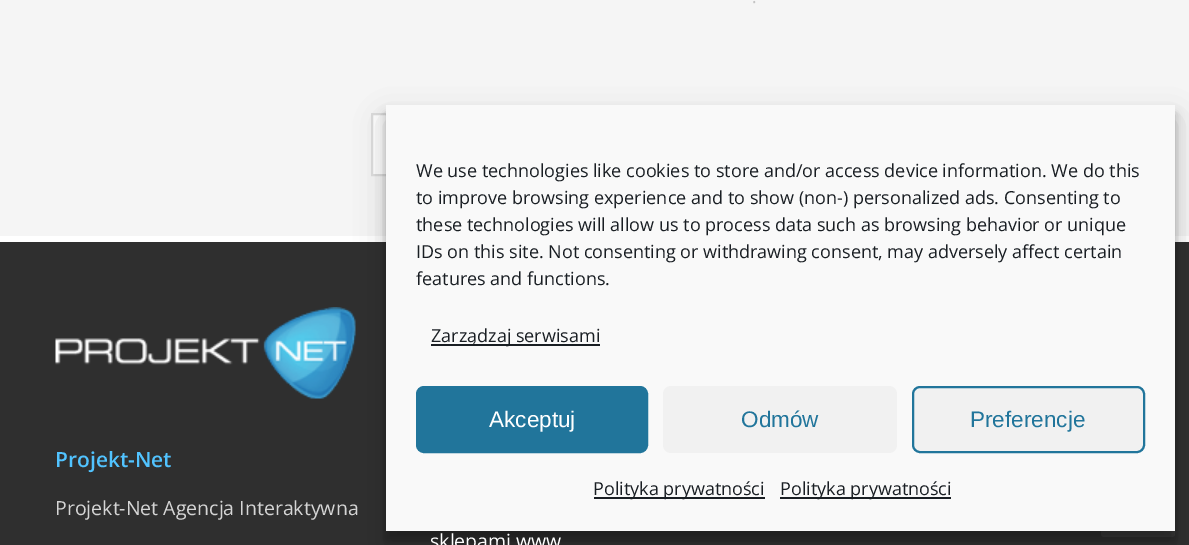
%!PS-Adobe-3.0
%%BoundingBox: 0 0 1189 545
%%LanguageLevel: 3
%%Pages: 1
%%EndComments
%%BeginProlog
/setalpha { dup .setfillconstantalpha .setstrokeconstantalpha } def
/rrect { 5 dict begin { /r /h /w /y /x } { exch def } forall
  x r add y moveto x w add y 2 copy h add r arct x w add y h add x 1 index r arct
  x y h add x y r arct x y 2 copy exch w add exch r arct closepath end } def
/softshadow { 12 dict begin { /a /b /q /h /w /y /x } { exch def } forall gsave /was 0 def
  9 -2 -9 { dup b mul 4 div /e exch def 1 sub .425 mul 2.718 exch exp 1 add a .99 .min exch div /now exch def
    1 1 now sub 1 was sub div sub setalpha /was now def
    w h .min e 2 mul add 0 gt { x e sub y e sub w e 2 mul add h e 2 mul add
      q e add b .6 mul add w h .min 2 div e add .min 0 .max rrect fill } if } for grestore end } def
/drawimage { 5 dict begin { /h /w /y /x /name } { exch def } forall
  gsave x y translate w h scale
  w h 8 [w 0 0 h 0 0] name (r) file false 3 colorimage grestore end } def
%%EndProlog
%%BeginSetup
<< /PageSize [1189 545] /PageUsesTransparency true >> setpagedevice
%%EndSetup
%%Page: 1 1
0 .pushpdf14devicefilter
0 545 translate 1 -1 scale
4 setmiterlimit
0.961 setgray
0 0 1189 545 rectfill
1 setgray
373 115 13 59 rectfill
0.867 setgray
2 setlinewidth
372 114 448 61 rectstroke
0.184 setgray
0 242 1189 303 rectfill
1 setgray
0 236 1189 6 rectfill
(images/1.raw) 55 307 301 92 drawimage
0.231 setgray
1101 464 74 73 3 rrect fill
0 setgray
386 114 789 426 0 4.5 0.23 softshadow
386 120 789 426 0 15 0.19 softshadow
0.976 setgray
386 105 789 426 rectfill
0.098 0.118 0.137 setrgbcolor
431 344 169 2 rectfill
0.129 0.459 0.608 setrgbcolor
417 387 230 65 7 rrect gsave fill grestore
stroke
0.945 setgray
663 386 234 67 8 rrect fill
913 387 231 65 7 rrect gsave fill grestore
0.129 0.459 0.608 setrgbcolor
stroke
0.098 0.118 0.137 setrgbcolor
594 497 171 2 rectfill
780 497 171 2 rectfill
/OpenSans-Light [27 0 0 -27 0 0] selectfont
0.769 setgray
751 3 moveto (.) show
/OpenSans-SemiBold [21 0 0 -21 0 0] selectfont
0.318 0.765 1 setrgbcolor
55 467 moveto (Projekt-Net) show
/OpenSans-Regular [19.5 0 0 -19.5 0 0] selectfont
0.835 setgray
55 515 moveto (Projekt-Net Agencja Interaktywna) show
1 setgray
430 548 moveto (sklepami www) show
/OpenSans-Regular [18 0 0 -18 0 0] selectfont
0.098 0.118 0.137 setrgbcolor
416 177 moveto (We use technologies like cookies to store and/or access device information. We do this) show
416 204 moveto (to improve browsing experience and to show \(non-\) personalized ads. Consenting to) show
416 231 moveto (these technologies will allow us to process data such as browsing behavior or unique) show
416 258 moveto (IDs on this site. Not consenting or withdrawing consent, may adversely affect certain) show
416 285 moveto (features and functions.) show
431 342 moveto (Zarządzaj serwisami) show
/LiberationSans-Regular [22.5 0 0 -22.5 0 0] selectfont
1 setgray
489 427 moveto (Akceptuj) show
0.129 0.459 0.608 setrgbcolor
741 427 moveto (Odmów) show
970 427 moveto (Preferencje) show
/OpenSans-Regular [18 0 0 -18 0 0] selectfont
0.098 0.118 0.137 setrgbcolor
593 495 moveto (Polityka prywatności) show
780 495 moveto (Polityka prywatności) show
.poppdf14devicefilter showpage
%%EOF
